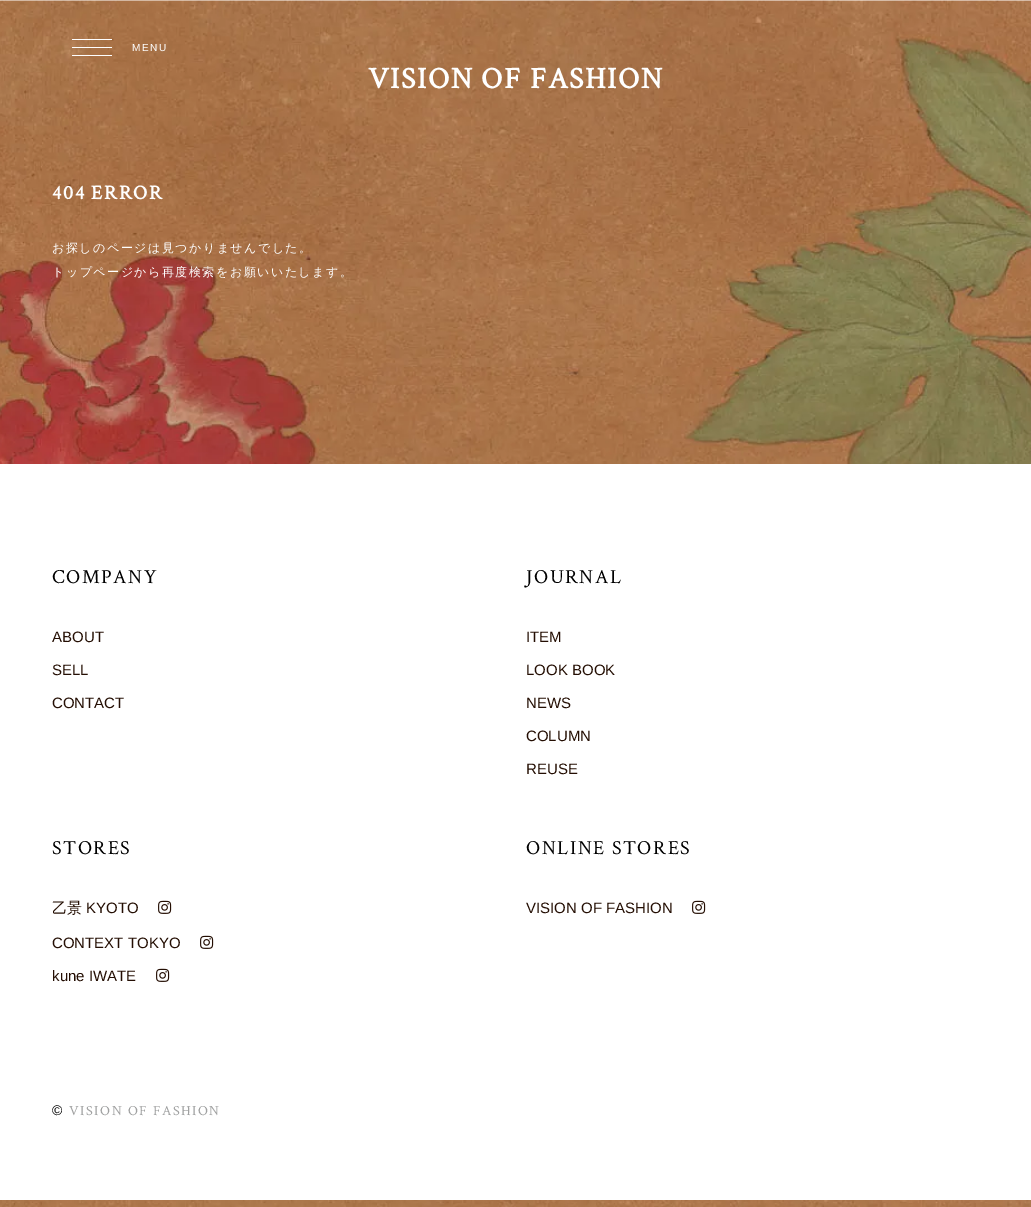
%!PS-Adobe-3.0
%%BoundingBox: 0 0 1031 1207
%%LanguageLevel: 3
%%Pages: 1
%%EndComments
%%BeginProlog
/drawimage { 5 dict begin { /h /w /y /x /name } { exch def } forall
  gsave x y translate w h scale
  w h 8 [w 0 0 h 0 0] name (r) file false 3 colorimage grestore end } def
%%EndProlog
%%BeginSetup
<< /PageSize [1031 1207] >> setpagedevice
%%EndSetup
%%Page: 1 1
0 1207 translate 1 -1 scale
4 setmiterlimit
1 setgray
0 0 1031 1207 rectfill
(images/1.raw) 0 0 1031 1207 drawimage
72 47 40 1 rectfill
72 39 40 1 rectfill
72 55 40 1 rectfill
0 464 1031 736 rectfill
(images/2.raw) 158 900 14 14 drawimage
(images/2.raw) 200 935 14 14 drawimage
(images/2.raw) 156 968 14 14 drawimage
(images/2.raw) 692 900 14 14 drawimage
/LiberationSans-Regular [10 0 0 -10 0 0] selectfont
132 51 moveto 1.5 0 (MENU) ashow
/CrimsonText-Bold [30 0 0 -30 0 0] selectfont
368 88 moveto 1.5 0 (VISION OF FASHION) ashow
/CrimsonText-Bold [20 0 0 -20 0 0] selectfont
52 199 moveto 1.5 0 (404 ERROR) ashow
/WenQuanYiZenHei-Medium [12 0 0 -12 0 0] selectfont
52 252 moveto 1.5 0 (お探しのページは見つかりませんでした。) ashow
52 276 moveto 1.5 0 (トップページから再度検索をお願いいたします。) ashow
/CrimsonText-Regular [20 0 0 -20 0 0] selectfont
0 setgray
52 583 moveto 1.5 0 (COMPANY) ashow
/LiberationSans-Regular [15 0 0 -15 0 0] selectfont
0.141 0.055 0.012 setrgbcolor
52 642 moveto (ABOUT) show
52 675 moveto (SELL) show
52 708 moveto (CONTACT) show
/CrimsonText-Regular [20 0 0 -20 0 0] selectfont
0 setgray
526 583 moveto 1.5 0 (JOURNAL) ashow
/LiberationSans-Regular [15 0 0 -15 0 0] selectfont
0.141 0.055 0.012 setrgbcolor
526 642 moveto (ITEM) show
526 675 moveto (LOOK BOOK) show
526 708 moveto (NEWS) show
526 741 moveto (COLUMN) show
526 774 moveto (REUSE) show
/CrimsonText-Regular [20 0 0 -20 0 0] selectfont
0 setgray
52 854 moveto 1.5 0 (STORES) ashow
/WenQuanYiZenHei-Medium [15 0 0 -15 0 0] selectfont
0.141 0.055 0.012 setrgbcolor
52 913 moveto (乙景) show
/LiberationSans-Regular [15 0 0 -15 0 0] selectfont
86 913 moveto (KYOTO) show
52 948 moveto (CONTEXT TOKYO) show
52 981 moveto (kune IWATE) show
/CrimsonText-Regular [20 0 0 -20 0 0] selectfont
0 setgray
526 854 moveto 1.5 0 (ONLINE STORES) ashow
/LiberationSans-Regular [15 0 0 -15 0 0] selectfont
0.141 0.055 0.012 setrgbcolor
526 913 moveto (VISION OF FASHION) show
/LiberationSans-Regular [14 0 0 -14 0 0] selectfont
0 setgray
52 1115 moveto 1.5 0 (©) ashow
/CrimsonText-Regular [14 0 0 -14 0 0] selectfont
0.624 0.627 0.627 setrgbcolor
69 1115 moveto 1.5 0 (VISION OF FASHION) ashow
showpage
%%EOF
